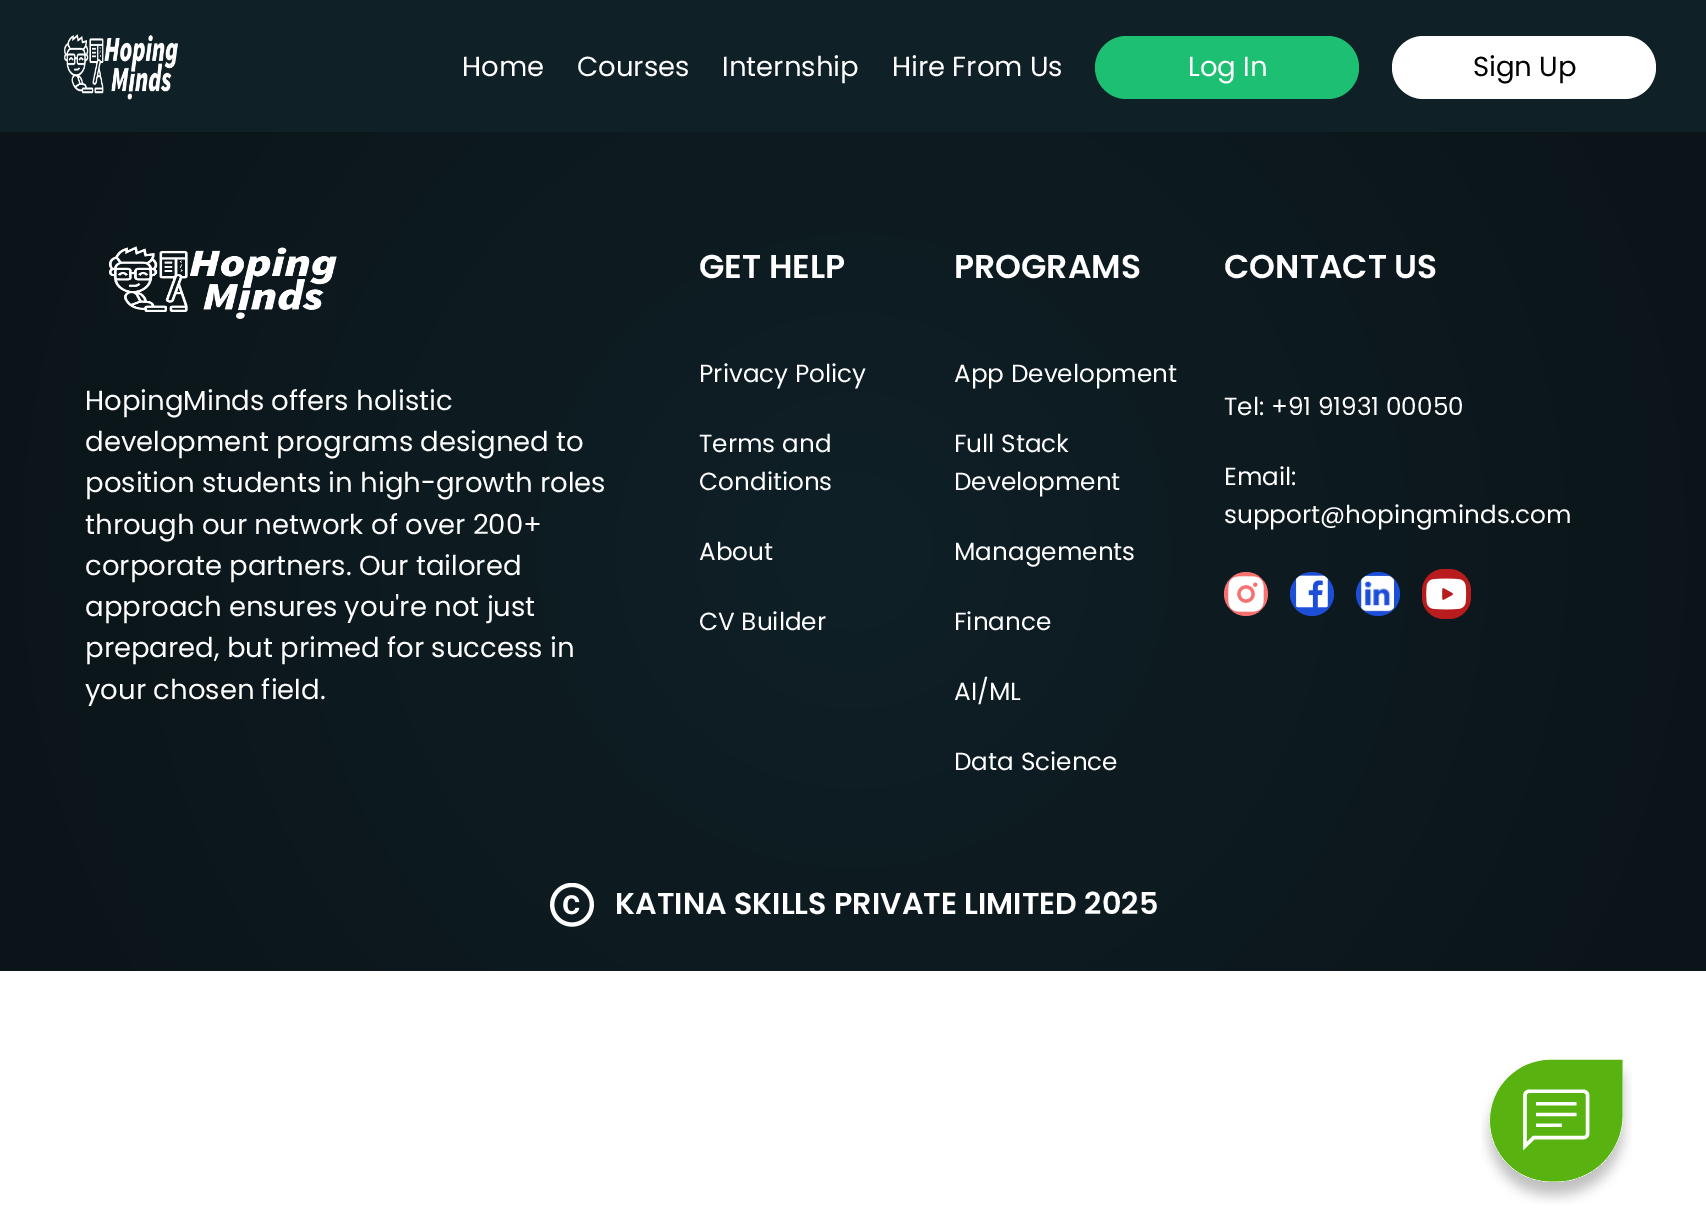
%!PS-Adobe-3.0
%%BoundingBox: 0 0 1706 1216
%%LanguageLevel: 3
%%Pages: 1
%%EndComments
%%BeginProlog
/rrect { 5 dict begin { /r /h /w /y /x } { exch def } forall
  x r add y moveto x w add y 2 copy h add r arct x w add y h add x 1 index r arct
  x y h add x y r arct x y 2 copy exch w add exch r arct closepath end } def
/drawimage { 5 dict begin { /h /w /y /x /name } { exch def } forall
  gsave x y translate w h scale
  w h 8 [w 0 0 h 0 0] name (r) file false 3 colorimage grestore end } def
%%EndProlog
%%BeginSetup
<< /PageSize [1706 1216] >> setpagedevice
%%EndSetup
%%Page: 1 1
0 1216 translate 1 -1 scale
4 setmiterlimit
1 setgray
0 0 1706 1216 rectfill
0.059 0.125 0.153 setrgbcolor
0 0 1706 132 rectfill
(images/1.raw) 64 34 114 66 drawimage
0.114 0.749 0.451 setrgbcolor
1095 36 264 63 31.5 rrect fill
1 setgray
1392 36 264 63 31.5 rrect fill
gsave newpath 0 132 moveto 1706 132 lineto 1706 971 lineto 0 971 lineto closepath clip newpath 854 551 translate 951 951 scale
<< /ShadingType 3 /ColorSpace /DeviceRGB /Coords [0 0 0 0 0 1] /Extend [true true] /Function << /FunctionType 2 /Domain [0 1] /C0 [0.059 0.125 0.153] /C1 [0.043 0.078 0.094] /N 1 >> >> shfill grestore
(images/2.raw) 109 246 228 73 drawimage
0.973 0.443 0.443 setrgbcolor
newpath 1246 594 22 0 360 arc closepath fill
(images/3.raw) 1228 576 36 36 drawimage
0.114 0.306 0.847 setrgbcolor
newpath 1312 594 22 0 360 arc closepath fill
(images/4.raw) 1296 575 32 33 drawimage
newpath 1378 594 22 0 360 arc closepath fill
(images/5.raw) 1361 575 33 37 drawimage
0.725 0.11 0.11 setrgbcolor
1422 569 49 50 22 rrect fill
(images/6.raw) 1426 578 41 32 drawimage
(images/7.raw) 550 883 44 44 drawimage
(images/8.raw) 1481 1059 151 145 drawimage
/Poppins-Regular [27.5 0 0 -27.5 0 0] selectfont
1 setgray
462 76 moveto (Home) show
577 76 moveto (Courses) show
722 76 moveto (Internship) show
892 76 moveto (Hire From Us) show
1188 76 moveto (Log In) show
0 setgray
1473 76 moveto (Sign Up) show
1 setgray
85 410 moveto (HopingMinds offers holistic) show
85 451 moveto (development programs designed to) show
85 492 moveto (position students in high-growth roles) show
85 534 moveto (through our network of over 200+) show
85 575 moveto (corporate partners. Our tailored) show
85 616 moveto (approach ensures you're not just) show
85 657 moveto (prepared, but primed for success in) show
85 699 moveto (your chosen field.) show
/Poppins-SemiBold [33 0 0 -33 0 0] selectfont
699 278 moveto (GET HELP) show
/Poppins-Regular [24.75 0 0 -24.75 0 0] selectfont
699 382 moveto (Privacy Policy) show
699 452 moveto (Terms and) show
699 490 moveto (Conditions) show
699 560 moveto (About) show
699 630 moveto (CV Builder) show
/Poppins-SemiBold [33 0 0 -33 0 0] selectfont
954 278 moveto (PROGRAMS) show
/Poppins-Regular [24.75 0 0 -24.75 0 0] selectfont
954 382 moveto (App Development) show
954 452 moveto (Full Stack) show
954 490 moveto (Development) show
954 560 moveto (Managements) show
954 630 moveto (Finance) show
954 700 moveto (AI/ML) show
954 770 moveto (Data Science) show
/Poppins-SemiBold [33 0 0 -33 0 0] selectfont
1224 278 moveto (CONTACT US) show
/Poppins-Regular [24.75 0 0 -24.75 0 0] selectfont
1224 415 moveto (Tel: +91 91931 00050) show
1224 485 moveto (Email:) show
1224 523 moveto (support@hopingminds.com) show
/Poppins-SemiBold [30.25 0 0 -30.25 0 0] selectfont
615 914 moveto (KATINA SKILLS PRIVATE LIMITED 2025) show
showpage
%%EOF
